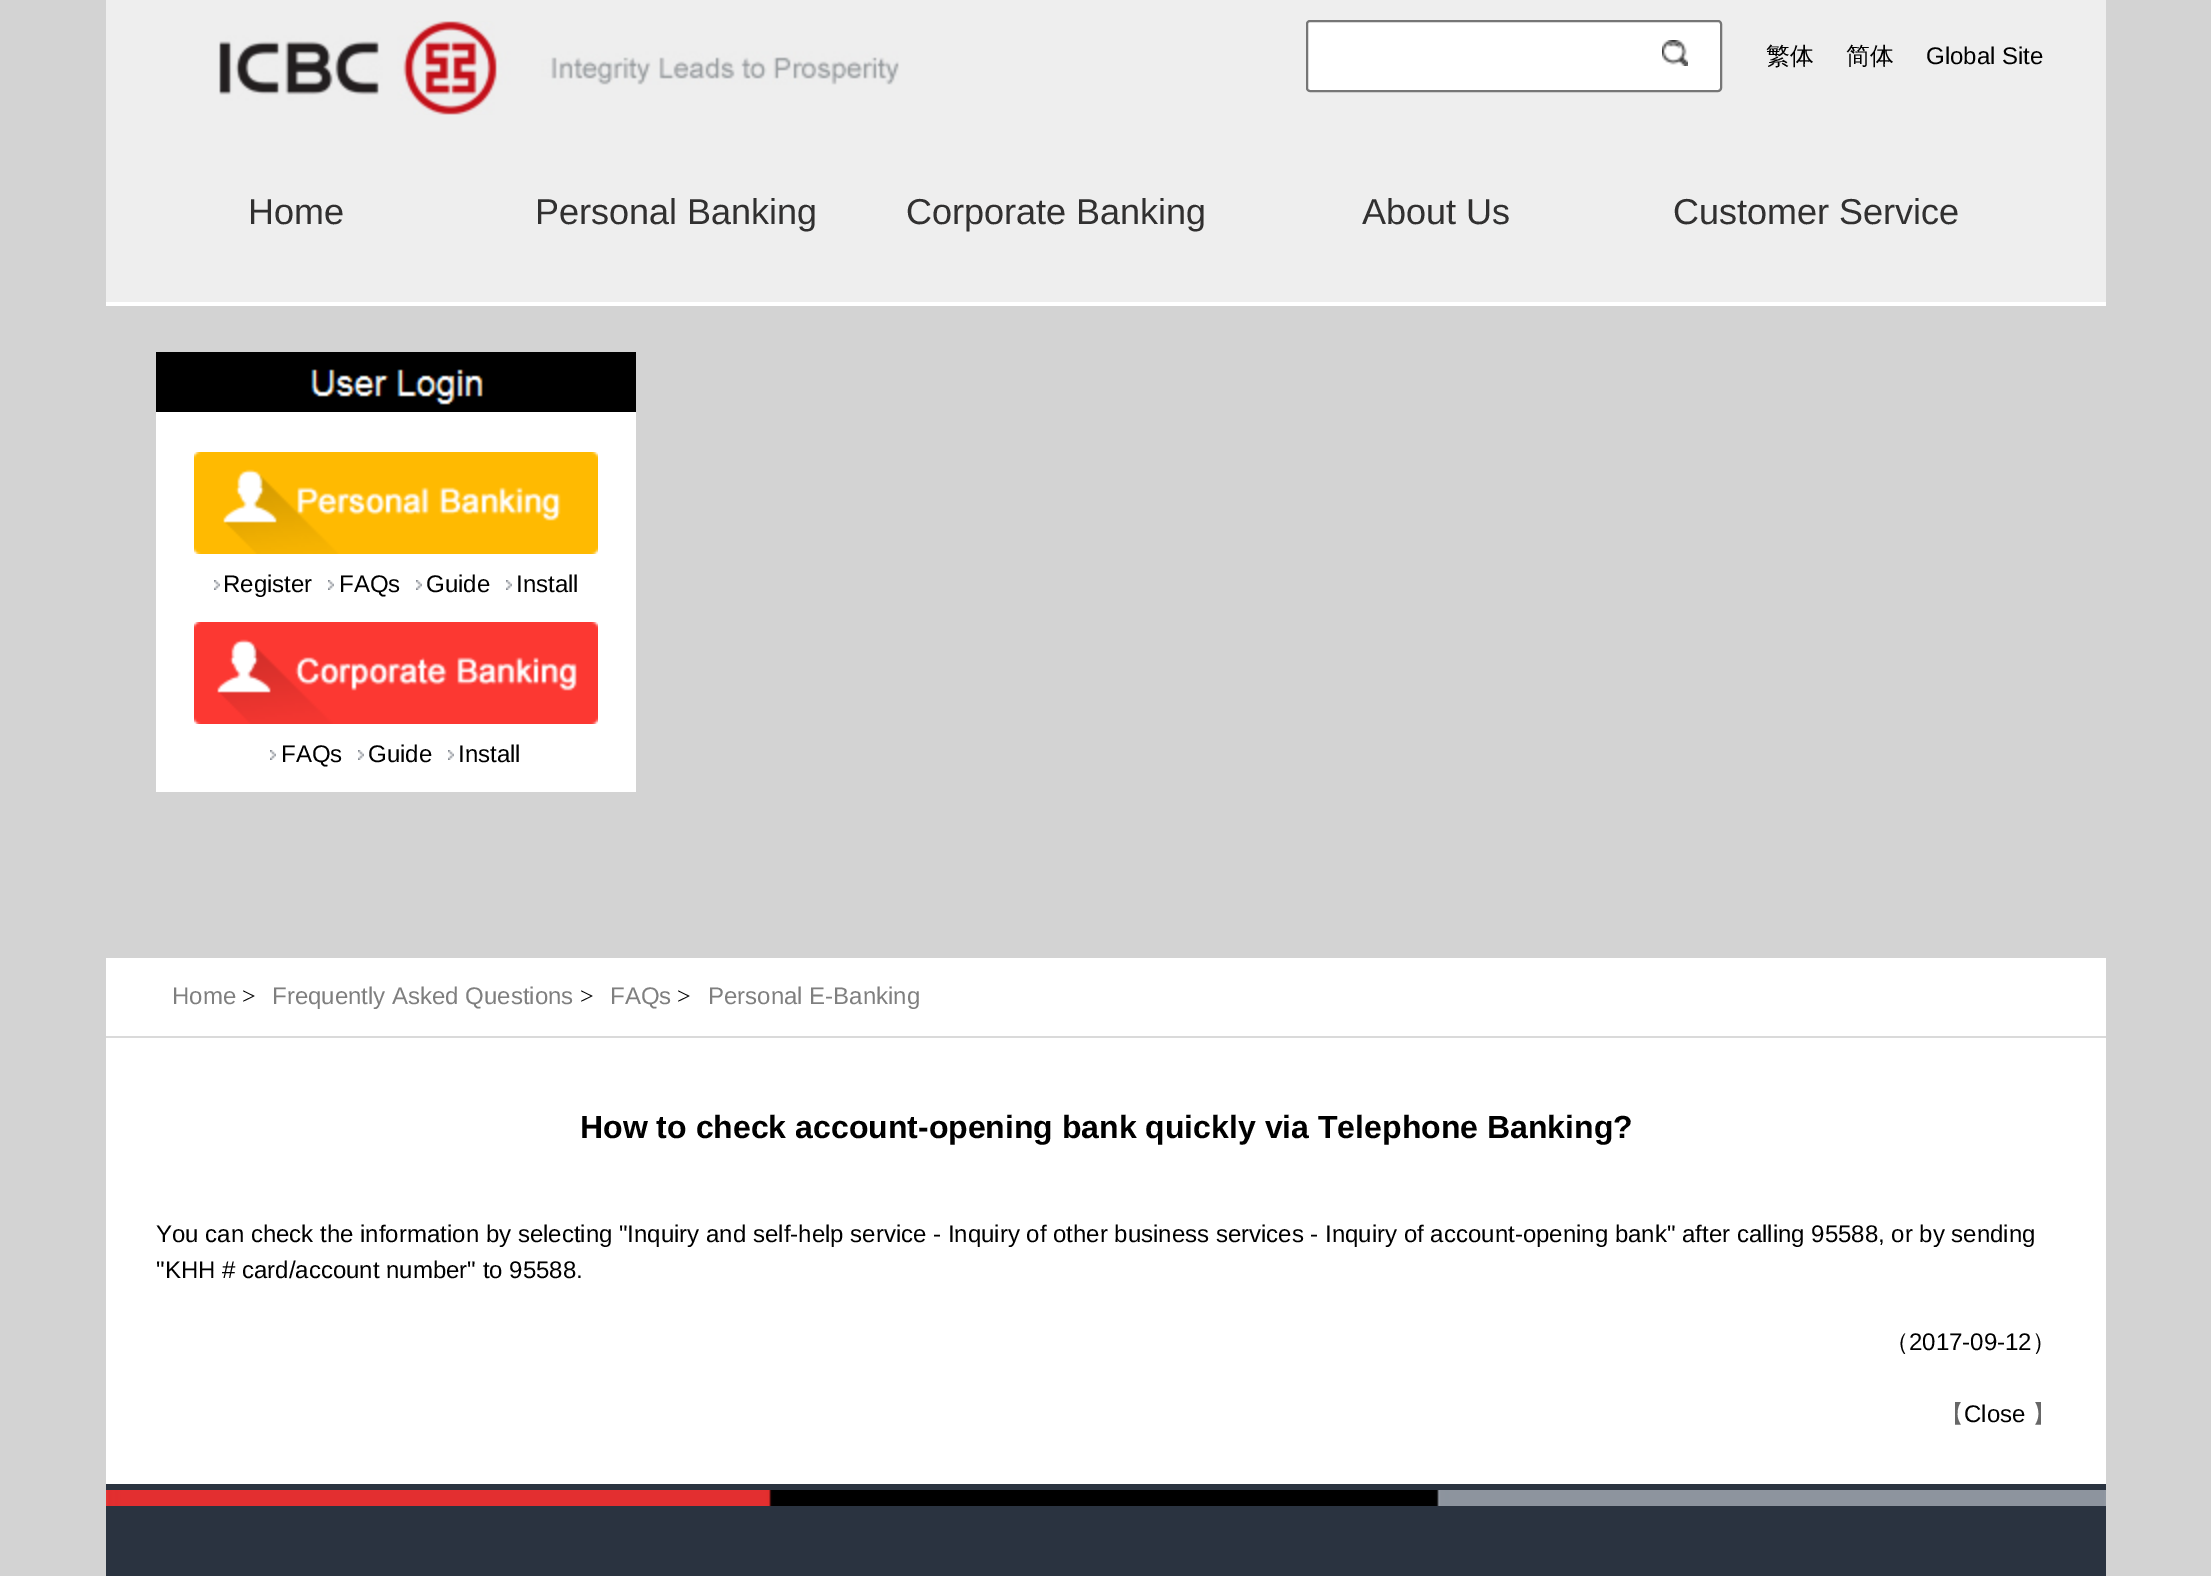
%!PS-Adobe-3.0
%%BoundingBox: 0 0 2211 1576
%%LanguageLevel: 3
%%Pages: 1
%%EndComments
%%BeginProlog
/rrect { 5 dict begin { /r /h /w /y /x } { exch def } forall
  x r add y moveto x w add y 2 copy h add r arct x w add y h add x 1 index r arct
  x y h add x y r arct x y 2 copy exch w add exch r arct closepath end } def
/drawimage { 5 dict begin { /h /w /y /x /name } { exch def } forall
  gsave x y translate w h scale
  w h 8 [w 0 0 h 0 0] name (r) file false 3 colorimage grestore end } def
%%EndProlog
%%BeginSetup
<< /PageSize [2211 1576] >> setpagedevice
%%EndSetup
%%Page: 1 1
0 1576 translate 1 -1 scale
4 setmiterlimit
0.827 setgray
0 0 2211 1576 rectfill
0.933 setgray
106 0 2000 302 rectfill
(images/1.raw) 219 21 680 94 drawimage
1 setgray
1307 21 414 70 3 rrect gsave fill grestore
0.463 setgray
2 setlinewidth
stroke
(images/2.raw) 1662 40 26 26 drawimage
1 setgray
106 302 2000 4 rectfill
156 412 480 380 rectfill
(images/3.raw) 156 352 480 60 drawimage
(images/4.raw) 194 452 404 102 drawimage
(images/5.raw) 214 580 6 10 drawimage
(images/5.raw) 328 580 6 10 drawimage
(images/5.raw) 416 580 6 10 drawimage
(images/5.raw) 506 580 6 10 drawimage
(images/6.raw) 194 622 404 102 drawimage
(images/5.raw) 270 750 6 10 drawimage
(images/5.raw) 358 750 6 10 drawimage
(images/5.raw) 448 750 6 10 drawimage
106 958 2000 526 rectfill
0.855 setgray
106 1036 2000 2 rectfill
0.165 0.2 0.251 setrgbcolor
106 1484 2000 92 rectfill
(images/7.raw) 106 1490 2000 16 drawimage
/WenQuanYiZenHei-Medium [24 0 0 -24 0 0] selectfont
0 setgray
1766 64 moveto (繁体) show
1846 64 moveto (简体) show
/LiberationSans-Regular [24 0 0 -24 0 0] selectfont
1926 64 moveto (Global Site) show
/LiberationSans-Regular [36 0 0 -36 0 0] selectfont
0.192 0.188 0.188 setrgbcolor
248 224 moveto (Home) show
535 224 moveto (Personal Banking) show
906 224 moveto (Corporate Banking) show
1362 224 moveto (About Us) show
1673 224 moveto (Customer Service) show
/LiberationSans-Regular [24 0 0 -24 0 0] selectfont
0 setgray
223 592 moveto (Register) show
339 592 moveto (FAQs) show
426 592 moveto (Guide) show
516 592 moveto (Install) show
281 762 moveto (FAQs) show
368 762 moveto (Guide) show
458 762 moveto (Install) show
0.498 setgray
172 1004 moveto (Home) show
/LiberationSerif-Regular [24 0 0 -24 0 0] selectfont
0 setgray
242 1004 moveto (>) show
/LiberationSans-Regular [24 0 0 -24 0 0] selectfont
0.498 setgray
272 1004 moveto (Frequently Asked Questions) show
/LiberationSerif-Regular [24 0 0 -24 0 0] selectfont
0 setgray
580 1004 moveto (>) show
/LiberationSans-Regular [24 0 0 -24 0 0] selectfont
0.498 setgray
610 1004 moveto (FAQs) show
/LiberationSerif-Regular [24 0 0 -24 0 0] selectfont
0 setgray
677 1004 moveto (>) show
/LiberationSans-Regular [24 0 0 -24 0 0] selectfont
0.498 setgray
708 1004 moveto (Personal E-Banking) show
/LiberationSans-Bold [32 0 0 -32 0 0] selectfont
0 setgray
580 1138 moveto (How to check account-opening bank quickly via Telephone Banking?) show
/LiberationSans-Regular [24 0 0 -24 0 0] selectfont
156 1242 moveto (You can check the information by selecting "Inquiry and self-help service - Inquiry of other business services - Inquiry of account-opening bank" after calling 95588, or by sending) show
156 1278 moveto ("KHH # card/account number" to 95588.) show
/WenQuanYiZenHei-Medium [24 0 0 -24 0 0] selectfont
1885 1350 moveto (（) show
/LiberationSans-Regular [24 0 0 -24 0 0] selectfont
1909 1350 moveto (2017-09-12) show
/WenQuanYiZenHei-Medium [24 0 0 -24 0 0] selectfont
2032 1350 moveto (）) show
0.404 setgray
1940 1422 moveto (【) show
/LiberationSans-Regular [24 0 0 -24 0 0] selectfont
0 setgray
1964 1422 moveto (Close) show
/WenQuanYiZenHei-Medium [24 0 0 -24 0 0] selectfont
0.404 setgray
2032 1422 moveto (】) show
showpage
%%EOF
